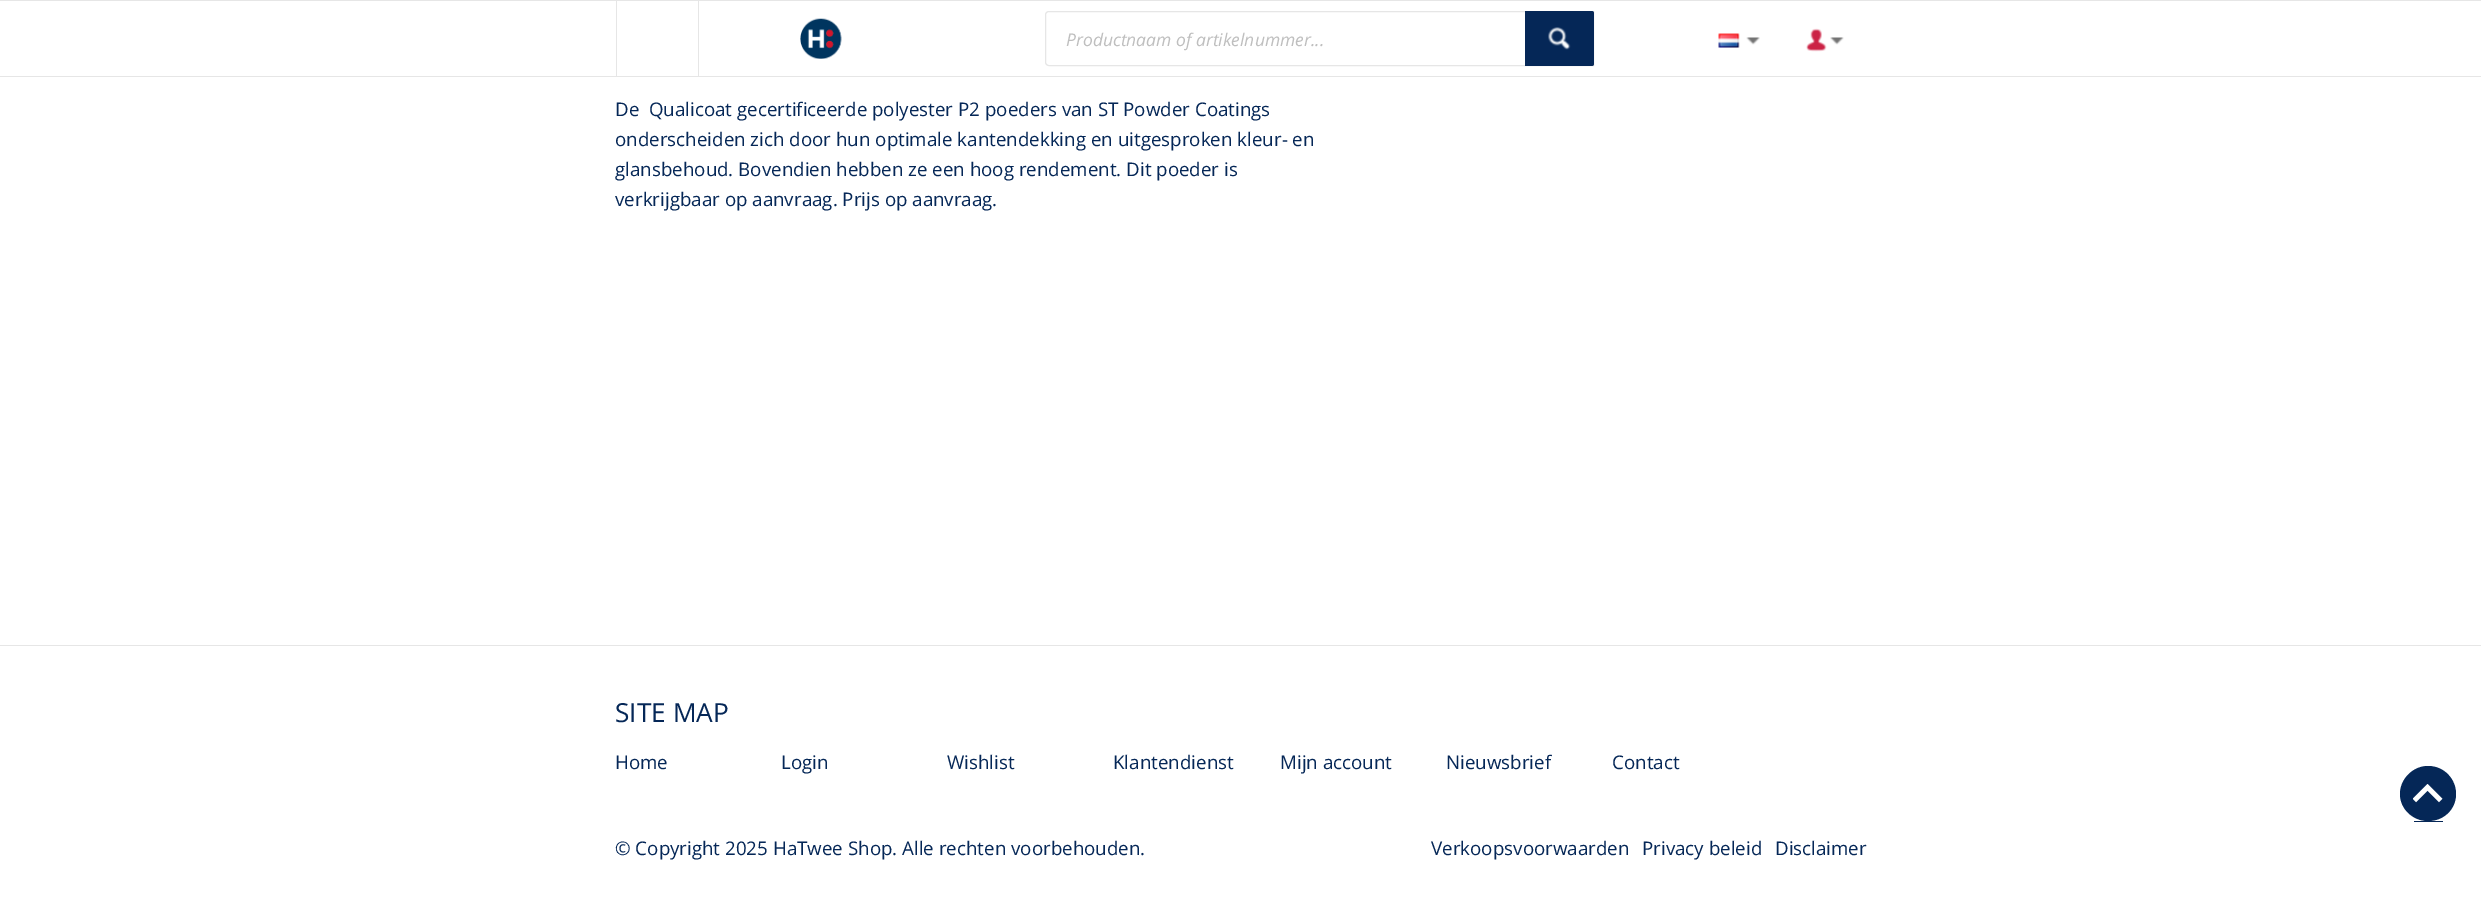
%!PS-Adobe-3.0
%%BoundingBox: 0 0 2481 910
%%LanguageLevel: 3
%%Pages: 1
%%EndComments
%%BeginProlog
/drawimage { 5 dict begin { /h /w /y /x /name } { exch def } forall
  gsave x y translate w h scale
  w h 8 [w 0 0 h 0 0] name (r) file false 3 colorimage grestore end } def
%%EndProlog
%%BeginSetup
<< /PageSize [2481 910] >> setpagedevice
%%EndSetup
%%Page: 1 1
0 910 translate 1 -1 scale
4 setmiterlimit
1 setgray
0 0 2481 910 rectfill
0.902 setgray
0 0 2481 1 rectfill
0 76 2481 1 rectfill
698 1 1 75 rectfill
616 1 1 75 rectfill
(images/1.raw) 800 18 42 41 drawimage
newpath 1049 11.5 moveto 1593.5 11.5 lineto 1593.5 65.5 lineto 1049 65.5 lineto 1047 65.5 1045.5 64 1045.5 62 curveto 1045.5 15 lineto 1045.5 13 1047 11.5 1049 11.5 curveto closepath stroke
0.02 0.153 0.341 setrgbcolor
newpath 1525 11 moveto 1591.5 11 lineto 1593 11 1594 12 1594 13.5 curveto 1594 63.5 lineto 1594 65 1593 66 1591.5 66 curveto 1525 66 lineto closepath fill
(images/2.raw) 1548 27 23 23 drawimage
(images/3.raw) 1718 33 22 15 drawimage
(images/4.raw) 1746 37 14 8 drawimage
(images/5.raw) 1806 28 21 24 drawimage
(images/6.raw) 1830 37 14 8 drawimage
newpath 2428 766 moveto 2444 766 2456 779 2456 794 curveto 2456 809 2444 821 2428 821 curveto 2413 821 2400 809 2400 794 curveto 2400 779 2413 766 2428 766 curveto closepath fill
2414 821 29 1 rectfill
(images/7.raw) 2413 784 30 19 drawimage
0.902 setgray
0 645 2481 1 rectfill
/OpenSans-Italic [17.5 0 0 -17.5 0 0] selectfont
0.749 setgray
1066 46 moveto (Productnaam of artikelnummer...) show
/OpenSans-Regular [18.75 0 0 -18.75 0 0] selectfont
0.02 0.153 0.341 setrgbcolor
615 116 moveto (De  Qualicoat gecertificeerde polyester P2 poeders van ST Powder Coatings) show
615 146 moveto (onderscheiden zich door hun optimale kantendekking en uitgesproken kleur- en) show
615 176 moveto (glansbehoud. Bovendien hebben ze een hoog rendement. Dit poeder is) show
615 206 moveto (verkrijgbaar op aanvraag. Prijs op aanvraag.) show
/OpenSans-Regular [26.25 0 0 -26.25 0 0] selectfont
615 722 moveto (SITE MAP) show
/OpenSans-Regular [18.75 0 0 -18.75 0 0] selectfont
615 769 moveto (Home) show
781 769 moveto (Login) show
947 769 moveto (Wishlist) show
1113 769 moveto (Klantendienst) show
1280 769 moveto (Mijn account) show
1446 769 moveto (Nieuwsbrief) show
1612 769 moveto (Contact) show
615 855 moveto (© Copyright 2025 HaTwee Shop. Alle rechten voorbehouden.) show
1431 855 moveto (Verkoopsvoorwaarden) show
1642 855 moveto (Privacy beleid) show
1775 855 moveto (Disclaimer) show
showpage
%%EOF
